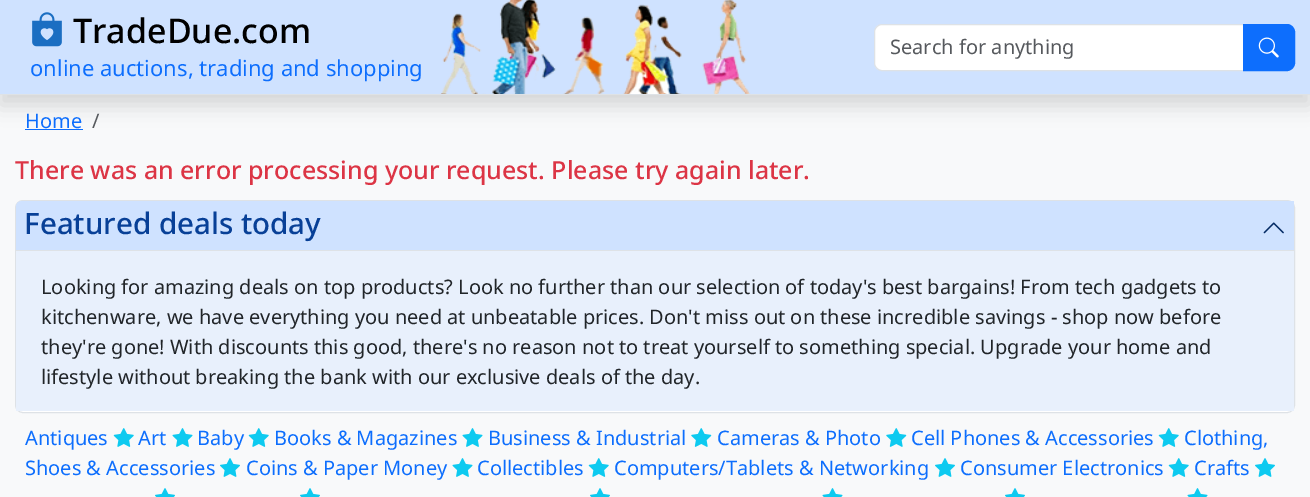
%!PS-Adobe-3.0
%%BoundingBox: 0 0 1310 497
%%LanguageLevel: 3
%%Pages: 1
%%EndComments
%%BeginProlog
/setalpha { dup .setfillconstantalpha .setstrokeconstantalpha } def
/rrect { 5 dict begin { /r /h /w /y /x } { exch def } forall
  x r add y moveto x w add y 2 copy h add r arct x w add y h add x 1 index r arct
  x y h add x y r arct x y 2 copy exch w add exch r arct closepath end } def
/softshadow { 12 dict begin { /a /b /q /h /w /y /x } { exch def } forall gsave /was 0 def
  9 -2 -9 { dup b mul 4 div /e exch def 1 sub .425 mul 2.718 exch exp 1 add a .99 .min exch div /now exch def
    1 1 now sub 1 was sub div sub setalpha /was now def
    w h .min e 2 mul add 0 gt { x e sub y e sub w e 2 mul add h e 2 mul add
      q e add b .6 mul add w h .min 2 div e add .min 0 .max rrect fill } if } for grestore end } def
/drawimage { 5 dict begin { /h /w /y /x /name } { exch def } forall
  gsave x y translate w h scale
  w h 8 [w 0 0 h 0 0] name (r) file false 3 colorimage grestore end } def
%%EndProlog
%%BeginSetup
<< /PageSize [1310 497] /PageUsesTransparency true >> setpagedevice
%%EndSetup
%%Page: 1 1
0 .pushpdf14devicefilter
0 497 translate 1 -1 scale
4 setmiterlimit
0.973 0.976 0.98 setrgbcolor
0 0 1310 497 rectfill
0 setgray
0 10 1310 95 0 10 0.15 softshadow
0.812 0.886 1 setrgbcolor
0 0 1310 94 rectfill
(images/1.raw) 440 0 311 94 drawimage
0.871 0.886 0.902 setrgbcolor
0 94 1310 1 rectfill
(images/2.raw) 32 12 30 35 drawimage
1 setgray
newpath 881 25 moveto 1243 25 lineto 1243 70 lineto 881 70 lineto 877.5 70 875 67.5 875 64 curveto 875 31 lineto 875 27.5 877.5 25 881 25 curveto closepath fill
0.871 0.886 0.902 setrgbcolor
newpath 882 24.5 moveto 1243.5 24.5 lineto 1243.5 70.5 lineto 882 70.5 lineto 878 70.5 874.5 67 874.5 63 curveto 874.5 32 lineto 874.5 28 878 24.5 882 24.5 curveto closepath stroke
0.051 0.431 0.992 setrgbcolor
newpath 1243.5 24.5 moveto 1287 24.5 lineto 1291 24.5 1294.5 28 1294.5 32 curveto 1294.5 63 lineto 1294.5 67 1291 70.5 1287 70.5 curveto 1243.5 70.5 lineto closepath gsave fill grestore
stroke
(images/3.raw) 1258 37 21 21 drawimage
25 129 58 1 rectfill
1 setgray
15.5 200.5 1279 212 7.5 rrect gsave fill grestore
0.871 0.886 0.902 setrgbcolor
stroke
0.812 0.886 1 setrgbcolor
newpath 22 201 moveto 1294 201 lineto 1294 251 lineto 16 251 lineto 16 207 lineto 16 203.5 18.5 201 22 201 curveto closepath fill
0.871 0.886 0.902 setrgbcolor
16 250 1278 1 rectfill
(images/4.raw) 1263 222 21 12 drawimage
0.91 0.941 0.988 setrgbcolor
16 251 1278 160 rectfill
(images/5.raw) 113 428 21 19 drawimage
(images/6.raw) 172 428 21 19 drawimage
(images/5.raw) 248 428 21 19 drawimage
(images/6.raw) 462 428 21 19 drawimage
(images/7.raw) 691 428 21 19 drawimage
(images/7.raw) 886 428 21 19 drawimage
(images/5.raw) 1158 428 21 19 drawimage
(images/8.raw) 220 458 20 19 drawimage
(images/6.raw) 452 458 21 19 drawimage
(images/5.raw) 588 458 21 19 drawimage
(images/8.raw) 935 458 20 19 drawimage
(images/5.raw) 1168 458 21 19 drawimage
(images/8.raw) 1255 458 20 19 drawimage
(images/9.raw) 155 488 20 9 drawimage
(images/9.raw) 300 488 20 9 drawimage
(images/9.raw) 590 488 20 9 drawimage
(images/10.raw) 822 488 21 9 drawimage
(images/9.raw) 1005 488 20 9 drawimage
(images/10.raw) 1187 488 21 9 drawimage
/NotoSans-Medium [34 0 0 -34 0 0] selectfont
0 setgray
73 43 moveto (TradeDue.com) show
/NotoSans-Regular [22 0 0 -22 0 0] selectfont
0.051 0.431 0.992 setrgbcolor
30 76 moveto (online auctions, trading and shopping) show
/NotoSans-Regular [20 0 0 -20 0 0] selectfont
0.337 0.349 0.365 setrgbcolor
890 54 moveto (Search for anything) show
0.051 0.431 0.992 setrgbcolor
25 128 moveto (Home) show
0.337 0.349 0.365 setrgbcolor
92 128 moveto (/) show
/NotoSans-Medium [25 0 0 -25 0 0] selectfont
0.863 0.208 0.271 setrgbcolor
15 179 moveto (There was an error processing your request. Please try again later.) show
/NotoSans-Medium [29.5 0 0 -29.5 0 0] selectfont
0.031 0.251 0.592 setrgbcolor
24 234 moveto (Featured deals today) show
/NotoSans-Regular [20 0 0 -20 0 0] selectfont
0.129 0.145 0.161 setrgbcolor
41 294 moveto (Looking for amazing deals on top products? Look no further than our selection of today's best bargains! From tech gadgets to) show
41 324 moveto (kitchenware, we have everything you need at unbeatable prices. Don't miss out on these incredible savings - shop now before) show
41 354 moveto (they're gone! With discounts this good, there's no reason not to treat yourself to something special. Upgrade your home and) show
41 384 moveto (lifestyle without breaking the bank with our exclusive deals of the day.) show
0.051 0.431 0.992 setrgbcolor
25 445 moveto (Antiques) show
138 445 moveto (Art) show
197 445 moveto (Baby) show
274 445 moveto (Books & Magazines) show
488 445 moveto (Business & Industrial) show
717 445 moveto (Cameras & Photo) show
911 445 moveto (Cell Phones & Accessories) show
1184 445 moveto (Clothing,) show
25 475 moveto (Shoes & Accessories) show
246 475 moveto (Coins & Paper Money) show
477 475 moveto (Collectibles) show
614 475 moveto (Computers/Tablets & Networking) show
960 475 moveto (Consumer Electronics) show
1194 475 moveto (Crafts) show
.poppdf14devicefilter showpage
%%EOF
